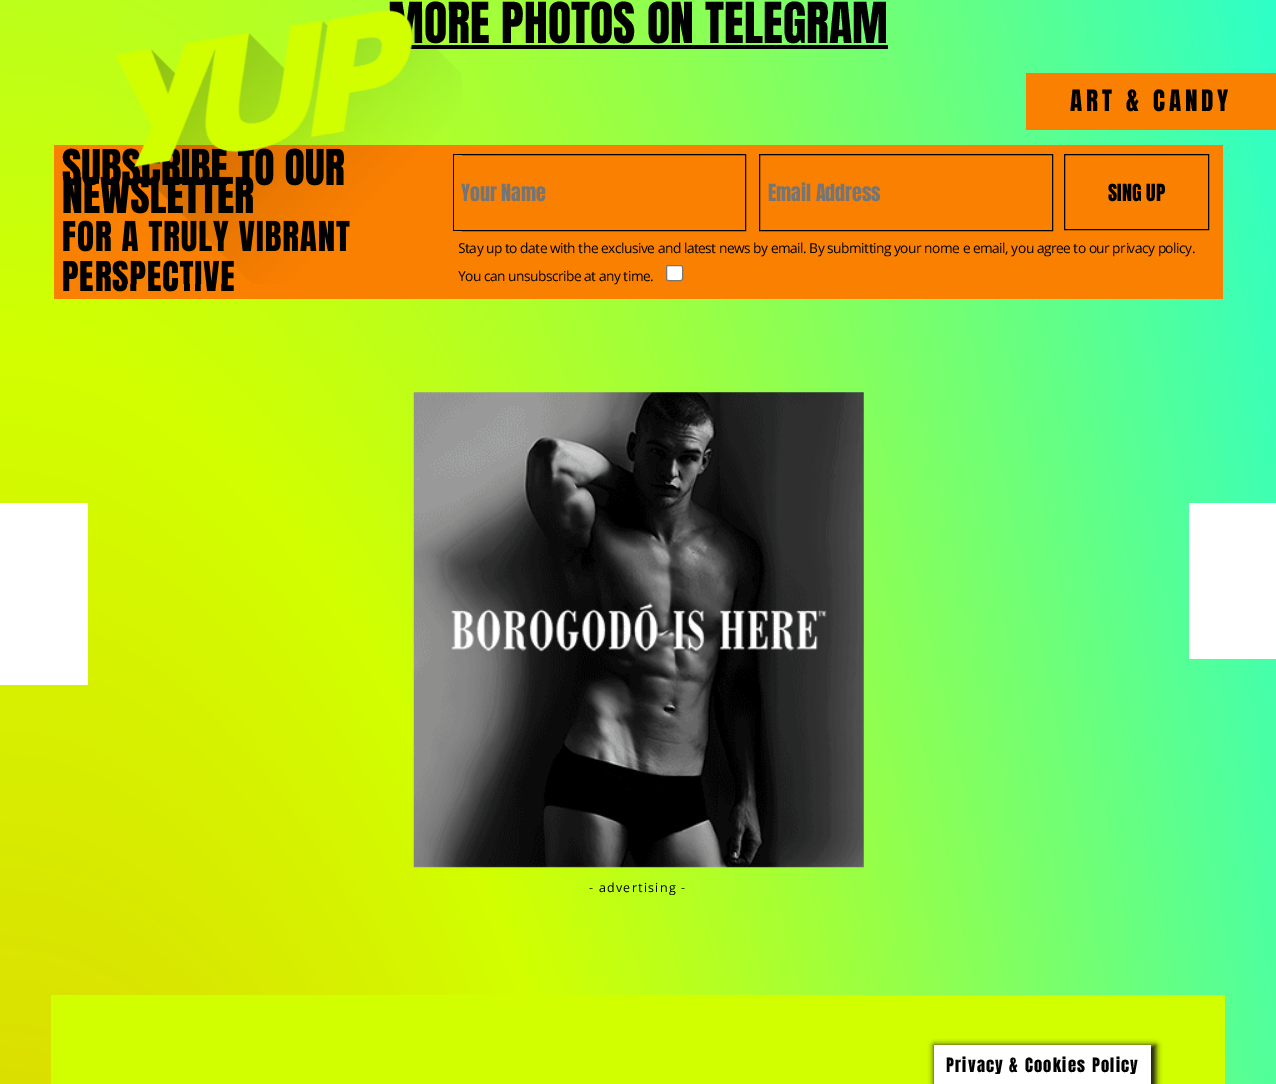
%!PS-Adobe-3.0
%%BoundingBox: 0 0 1276 1084
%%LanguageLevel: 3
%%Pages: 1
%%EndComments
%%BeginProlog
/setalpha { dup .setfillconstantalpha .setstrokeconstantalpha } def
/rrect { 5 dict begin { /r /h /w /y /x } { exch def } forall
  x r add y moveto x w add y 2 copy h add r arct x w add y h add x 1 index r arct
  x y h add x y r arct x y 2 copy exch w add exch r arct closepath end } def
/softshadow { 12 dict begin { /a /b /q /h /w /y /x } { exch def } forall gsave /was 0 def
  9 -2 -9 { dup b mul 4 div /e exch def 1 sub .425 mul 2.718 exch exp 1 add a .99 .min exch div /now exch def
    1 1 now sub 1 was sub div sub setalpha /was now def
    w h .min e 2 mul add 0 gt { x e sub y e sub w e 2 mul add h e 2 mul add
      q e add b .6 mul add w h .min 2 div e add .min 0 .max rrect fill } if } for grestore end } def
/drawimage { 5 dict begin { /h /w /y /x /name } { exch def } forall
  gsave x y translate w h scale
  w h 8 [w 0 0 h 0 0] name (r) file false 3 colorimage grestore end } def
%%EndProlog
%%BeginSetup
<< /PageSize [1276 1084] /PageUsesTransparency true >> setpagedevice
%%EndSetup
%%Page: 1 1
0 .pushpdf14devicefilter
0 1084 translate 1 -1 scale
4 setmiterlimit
1 setgray
0 0 1276 1084 rectfill
gsave newpath 0 0 moveto 1276 0 lineto 1276 1084 lineto 0 1084 lineto closepath clip newpath 0 3756 translate 1805 6809 scale
<< /ShadingType 3 /ColorSpace /DeviceRGB /Coords [0 0 0 0 0 1] /Extend [true true] /Function << /FunctionType 3 /Domain [0 1] /Functions [<< /FunctionType 2 /Domain [0 1] /C0 [1 0.427 0] /C1 [0.824 1 0] /N 1 >> << /FunctionType 2 /Domain [0 1] /C0 [0.824 1 0] /C1 [0.008 1 0.992] /N 1 >>] /Bounds [0.5] /Encode [0 1 0 1] >> >> shfill grestore
0 setgray
410 45 478 4 rectfill
0.98 0.502 0.004 setrgbcolor
54 145 1169 154 rectfill
0 setgray
453.5 154.5 292 76 rectstroke
759.5 154.5 293 76 rectstroke
1064.5 154.5 144 75 rectstroke
1 setgray
666.5 265.5 16 15 2 rrect gsave fill grestore
0.463 setgray
stroke
(images/1.raw) 413 392 451 476 drawimage
0.824 1 0 setrgbcolor
51 995 1174 89 rectfill
0.98 0.502 0.004 setrgbcolor
1026 73 250 57 rectfill
1 setgray
0 503 88 182 rectfill
1189 503 87 156 rectfill
0.086 setgray
934 1045 222 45 0 3 1 softshadow
1 setgray
934 1045 217 39 rectfill
/Anton-Regular [48 0 0 -48 0 0] selectfont
0 setgray
388 43 moveto (MORE PHOTOS ON TELEGRAM) show
/Anton-Regular [42 0 0 -42 0 0] selectfont
62 185 moveto (SUBSCRIBE TO OUR) show
62 213 moveto (NEWSLETTER) show
/Anton-Regular [35 0 0 -35 0 0] selectfont
62 251 moveto 0.9 0 (FOR A TRULY VIBRANT) ashow
62 291 moveto 0.9 0 (PERSPECTIVE) ashow
/Anton-Regular [20 0 0 -20 0 0] selectfont
0.459 setgray
461 201 moveto (Your Name) show
768 201 moveto (Email Address) show
0 setgray
1108 201 moveto (SING UP) show
/OpenSans-Regular [13.75 0 0 -13.75 0 0] selectfont
458 253 moveto -0.5 0 (Stay up to date with the exclusive and latest news by email. By submitting your nome e email, you agree to our privacy policy.) ashow
458 281 moveto -0.5 0 (You can unsubscribe at any time.) ashow
/OpenSans-Regular [12.5 0 0 -12.5 0 0] selectfont
589 892 moveto 1.25 0 (- advertising -) ashow
(images/2.raw) 115 10 347 274 drawimage
/Anton-Regular [25 0 0 -25 0 0] selectfont
1070 111 moveto 4 0 (ART & CANDY) ashow
/Anton-Regular [16.75 0 0 -16.75 0 0] selectfont
946 1072 moveto 1.25 0 (Privacy & Cookies Policy) ashow
.poppdf14devicefilter showpage
%%EOF
